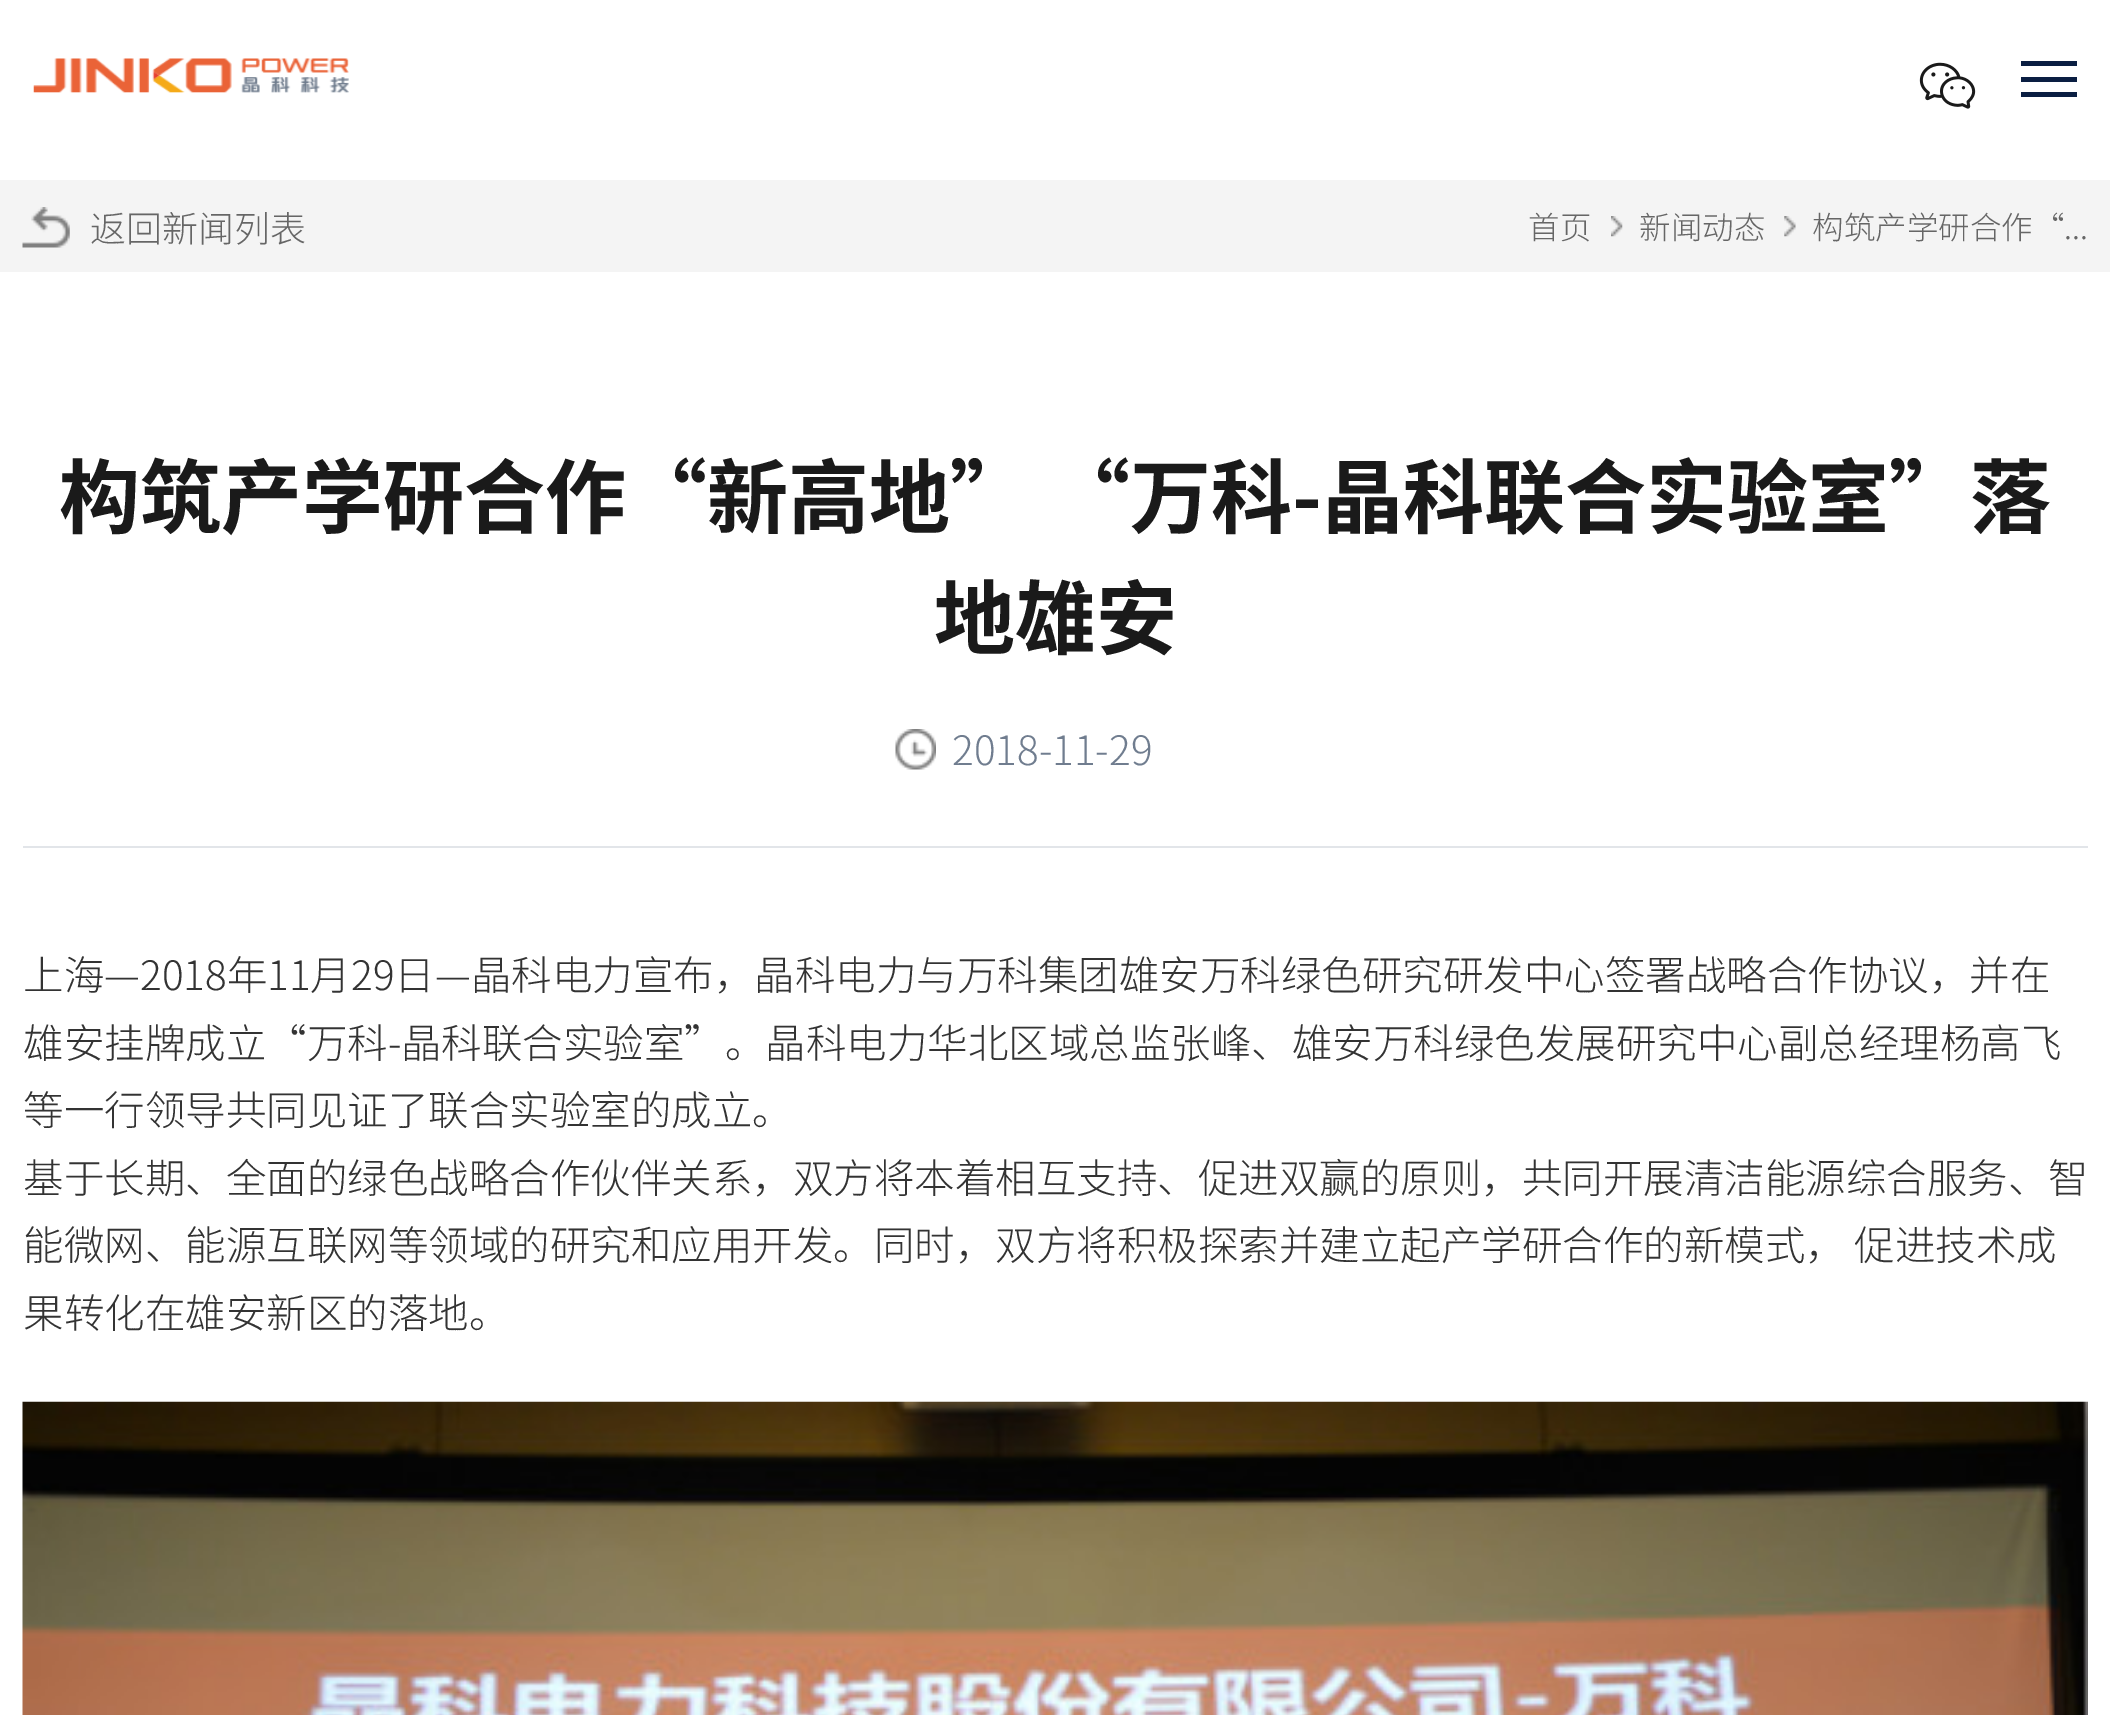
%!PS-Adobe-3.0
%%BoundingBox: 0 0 2110 1715
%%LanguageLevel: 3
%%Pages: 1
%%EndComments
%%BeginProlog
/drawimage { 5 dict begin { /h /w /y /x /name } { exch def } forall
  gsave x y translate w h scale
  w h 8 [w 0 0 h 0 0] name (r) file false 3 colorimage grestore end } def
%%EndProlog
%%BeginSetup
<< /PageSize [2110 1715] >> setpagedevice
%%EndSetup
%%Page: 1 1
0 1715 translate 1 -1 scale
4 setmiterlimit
1 setgray
0 0 2110 1715 rectfill
(images/1.raw) 33 58 316 35 drawimage
(images/2.raw) 1919 62 57 47 drawimage
0.039 0.118 0.259 setrgbcolor
2021 61 56 5 rectfill
2021 77 56 5 rectfill
2021 92 56 5 rectfill
0.957 setgray
0 180 2110 92 rectfill
(images/3.raw) 22 207 48 41 drawimage
(images/4.raw) 1611 216 12 21 drawimage
(images/5.raw) 1784 216 12 21 drawimage
(images/6.raw) 895 729 41 41 drawimage
0.886 0.898 0.914 setrgbcolor
23 846 2065 2 rectfill
(images/7.raw) 22 1401 2066 314 drawimage
/NotoSansCJKSC-Light [36 0 0 -36 0 0] selectfont
0.4 setgray
90 242 moveto (返回新闻列表) show
/NotoSansCJKSC-Light [31.5 0 0 -31.5 0 0] selectfont
1528 239 moveto (首页) show
1639 239 moveto (新闻动态) show
1812 239 moveto (构筑产学研合作“...) show
/NotoSansCJKSC-Bold [81 0 0 -81 0 0] selectfont
0.102 setgray
59 527 moveto (构筑产学研合作“新高地” “万科-晶科联合实验室”落) show
934 648 moveto (地雄安) show
/NotoSansCJKSC-Light [40.5 0 0 -40.5 0 0] selectfont
0.439 0.49 0.561 setrgbcolor
952 765 moveto (2018-11-29) show
0.2 setgray
23 990 moveto (上海—2018年11月29日—晶科电力宣布，晶科电力与万科集团雄安万科绿色研究研发中心签署战略合作协议，并在) show
23 1058 moveto (雄安挂牌成立“万科-晶科联合实验室”。晶科电力华北区域总监张峰、雄安万科绿色发展研究中心副总经理杨高飞) show
23 1125 moveto (等一行领导共同见证了联合实验室的成立。) show
23 1193 moveto (基于长期、全面的绿色战略合作伙伴关系，双方将本着相互支持、促进双赢的原则，共同开展清洁能源综合服务、智) show
23 1260 moveto (能微网、能源互联网等领域的研究和应用开发。同时，双方将积极探索并建立起产学研合作的新模式， 促进技术成) show
23 1328 moveto (果转化在雄安新区的落地。) show
showpage
%%EOF
